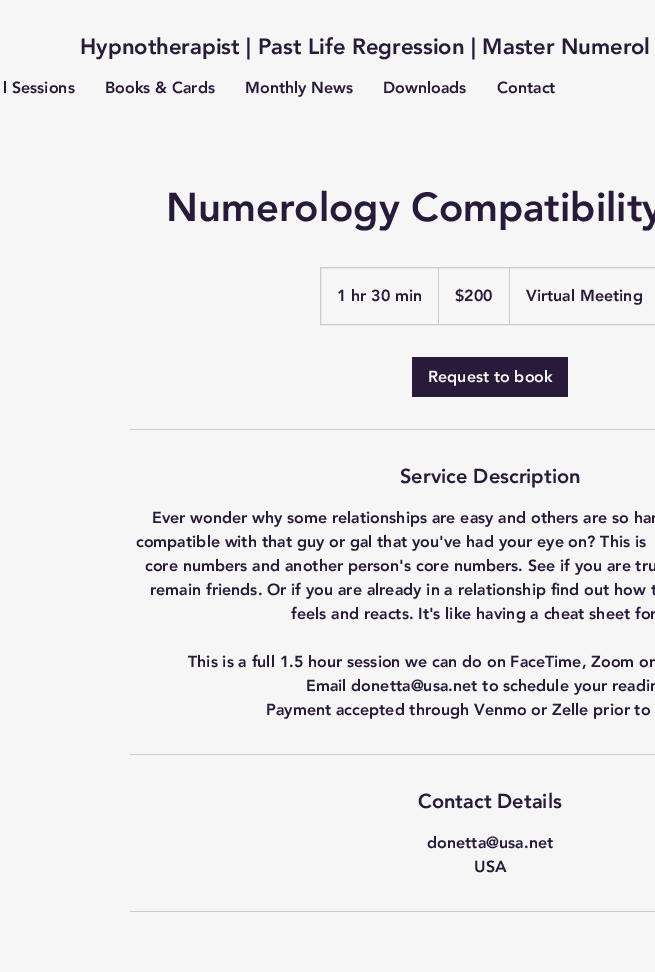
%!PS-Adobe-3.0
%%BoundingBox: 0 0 655 972
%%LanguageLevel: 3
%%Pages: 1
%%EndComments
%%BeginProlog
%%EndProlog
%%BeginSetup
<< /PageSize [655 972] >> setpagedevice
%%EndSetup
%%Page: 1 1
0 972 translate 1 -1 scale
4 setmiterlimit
0.965 setgray
0 0 655 972 rectfill
0.804 0.792 0.816 setrgbcolor
320.5 267.5 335 57 rectstroke
newpath 438 324 moveto 438 267 lineto 439 268 lineto 439 324 lineto closepath fill
newpath 509 324 moveto 509 267 lineto 510 268 lineto 510 324 lineto closepath fill
0.157 0.102 0.224 setrgbcolor
412 357 156 40 rectfill
0.804 0.792 0.816 setrgbcolor
130 429 525 1 rectfill
130 754 525 1 rectfill
130 911 525 1 rectfill
/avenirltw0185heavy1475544-Black [22 0 0 -22 0 0] selectfont
0.157 0.102 0.224 setrgbcolor
80 54 moveto (Hypnotherapist | Past Life Regression | Master Numerol) show
/avenirltw0185heavy1475544-Black [16 0 0 -16 0 0] selectfont
3 93 moveto (l Sessions) show
105 93 moveto (Books & Cards) show
245 93 moveto (Monthly News) show
383 93 moveto (Downloads) show
497 93 moveto (Contact) show
/avenirltw0185heavy1475544-Black [40 0 0 -40 0 0] selectfont
166 221 moveto (Numerology Compatibility) show
/avenirltw0185heavy1475544-Black [16 0 0 -16 0 0] selectfont
337 301 moveto (1 hr 30 min) show
455 301 moveto ($200) show
526 301 moveto (Virtual Meeting) show
0.965 setgray
428 382 moveto (Request to book) show
/avenirltw0185heavy1475544-Black [20 0 0 -20 0 0] selectfont
0.157 0.102 0.224 setrgbcolor
400 483 moveto (Service Description) show
/avenirltw0185heavy1475544-Black [16 0 0 -16 0 0] selectfont
152 523 moveto (Ever wonder why some relationships are easy and others are so har) show
136 547 moveto (compatible with that guy or gal that you've had your eye on? This is) show
145 571 moveto (core numbers and another person's core numbers. See if you are tru) show
150 595 moveto (remain friends. Or if you are already in a relationship find out how t) show
291 619 moveto (feels and reacts. It's like having a cheat sheet for) show
188 667 moveto (This is a full 1.5 hour session we can do on FaceTime, Zoom or) show
306 691 moveto (Email donetta@usa.net to schedule your readin) show
266 715 moveto (Payment accepted through Venmo or Zelle prior to) show
/avenirltw0185heavy1475544-Black [20 0 0 -20 0 0] selectfont
418 808 moveto (Contact Details) show
/avenirltw0185heavy1475544-Black [16 0 0 -16 0 0] selectfont
427 848 moveto (donetta@usa.net) show
474 872 moveto (USA) show
showpage
%%EOF
